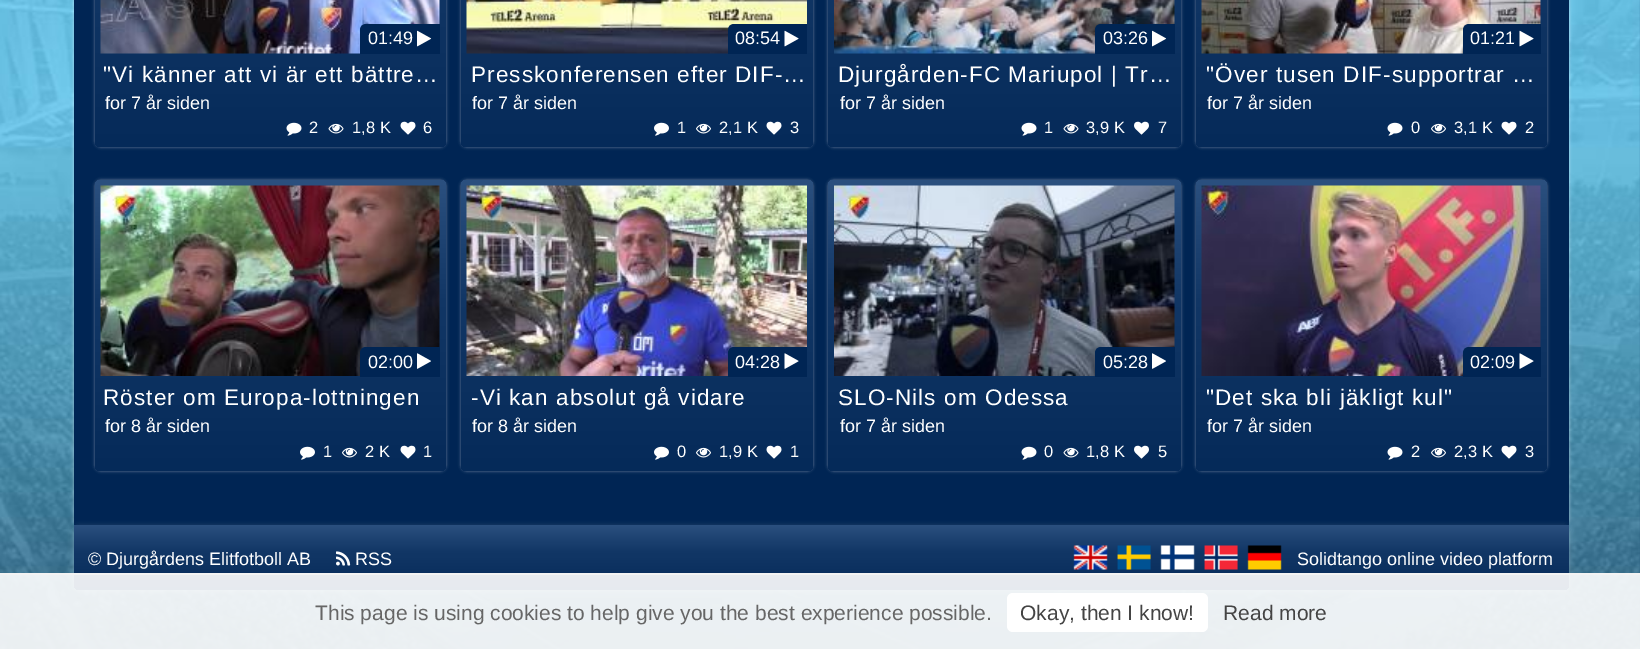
%!PS-Adobe-3.0
%%BoundingBox: 0 0 1640 649
%%LanguageLevel: 3
%%Pages: 1
%%EndComments
%%BeginProlog
/setalpha { dup .setfillconstantalpha .setstrokeconstantalpha } def
/rrect { 5 dict begin { /r /h /w /y /x } { exch def } forall
  x r add y moveto x w add y 2 copy h add r arct x w add y h add x 1 index r arct
  x y h add x y r arct x y 2 copy exch w add exch r arct closepath end } def
/softshadow { 12 dict begin { /a /b /q /h /w /y /x } { exch def } forall gsave /was 0 def
  9 -2 -9 { dup b mul 4 div /e exch def 1 sub .425 mul 2.718 exch exp 1 add a .99 .min exch div /now exch def
    1 1 now sub 1 was sub div sub setalpha /was now def
    w h .min e 2 mul add 0 gt { x e sub y e sub w e 2 mul add h e 2 mul add
      q e add b .6 mul add w h .min 2 div e add .min 0 .max rrect fill } if } for grestore end } def
/drawimage { 5 dict begin { /h /w /y /x /name } { exch def } forall
  gsave x y translate w h scale
  w h 8 [w 0 0 h 0 0] name (r) file false 3 colorimage grestore end } def
%%EndProlog
%%BeginSetup
<< /PageSize [1640 649] /PageUsesTransparency true >> setpagedevice
%%EndSetup
%%Page: 1 1
0 .pushpdf14devicefilter
0 649 translate 1 -1 scale
4 setmiterlimit
1 setgray
0 0 1640 649 rectfill
(images/1.raw) 0 0 1640 649 drawimage
74 -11 1495 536 6 1.5 0.45 softshadow
0 0.145 0.329 setrgbcolor
74 0 1495 525 rectfill
1 setgray
95 -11 351 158 6 1.5 0.4 softshadow
gsave 95 -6 351 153 6 rrect clip newpath
<< /ShadingType 2 /ColorSpace /DeviceRGB /Coords [270 -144 270 147] /Extend [true true] /Function << /FunctionType 3 /Domain [0 1] /Functions [<< /FunctionType 2 /Domain [0 1] /C0 [0.169 0.314 0.498] /C1 [0.071 0.216 0.4] /N 1 >> << /FunctionType 2 /Domain [0 1] /C0 [0.071 0.216 0.4] /C1 [0.02 0.165 0.349] /N 1 >>] /Bounds [0.4] /Encode [0 1 0 1] >> >> shfill grestore
(images/2.raw) 100 0 340 54 drawimage
0 0.145 0.329 setrgbcolor
newpath 366 24 moveto 440 24 lineto 440 54 lineto 360 54 lineto 360 30 lineto 360 26.5 362.5 24 366 24 curveto closepath fill
(images/3.raw) 417 30 15 17 drawimage
(images/4.raw) 286 122 16 14 drawimage
(images/5.raw) 328 123 16 11 drawimage
(images/6.raw) 400 121 16 14 drawimage
1 setgray
461 -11 352 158 6 1.5 0.4 softshadow
gsave 461 -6 352 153 6 rrect clip newpath
<< /ShadingType 2 /ColorSpace /DeviceRGB /Coords [637 -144 637 147] /Extend [true true] /Function << /FunctionType 3 /Domain [0 1] /Functions [<< /FunctionType 2 /Domain [0 1] /C0 [0.169 0.314 0.498] /C1 [0.071 0.216 0.4] /N 1 >> << /FunctionType 2 /Domain [0 1] /C0 [0.071 0.216 0.4] /C1 [0.02 0.165 0.349] /N 1 >>] /Bounds [0.4] /Encode [0 1 0 1] >> >> shfill grestore
(images/7.raw) 466 0 341 54 drawimage
0 0.145 0.329 setrgbcolor
newpath 734 24 moveto 807 24 lineto 807 54 lineto 728 54 lineto 728 30 lineto 728 26.5 730.5 24 734 24 curveto closepath fill
(images/8.raw) 784 30 15 17 drawimage
(images/9.raw) 654 122 15 14 drawimage
(images/10.raw) 696 123 15 11 drawimage
(images/6.raw) 766 121 16 14 drawimage
1 setgray
828 -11 353 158 6 1.5 0.4 softshadow
gsave 828 -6 353 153 6 rrect clip newpath
<< /ShadingType 2 /ColorSpace /DeviceRGB /Coords [1004 -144 1004 147] /Extend [true true] /Function << /FunctionType 3 /Domain [0 1] /Functions [<< /FunctionType 2 /Domain [0 1] /C0 [0.169 0.314 0.498] /C1 [0.071 0.216 0.4] /N 1 >> << /FunctionType 2 /Domain [0 1] /C0 [0.071 0.216 0.4] /C1 [0.02 0.165 0.349] /N 1 >>] /Bounds [0.4] /Encode [0 1 0 1] >> >> shfill grestore
(images/11.raw) 834 0 341 54 drawimage
0 0.145 0.329 setrgbcolor
newpath 1101 24 moveto 1175 24 lineto 1175 54 lineto 1095 54 lineto 1095 30 lineto 1095 26.5 1097.5 24 1101 24 curveto closepath fill
(images/3.raw) 1152 30 15 17 drawimage
(images/4.raw) 1021 122 16 14 drawimage
(images/5.raw) 1063 123 16 11 drawimage
(images/12.raw) 1134 121 15 14 drawimage
1 setgray
1196 -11 351 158 6 1.5 0.4 softshadow
gsave 1196 -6 351 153 6 rrect clip newpath
<< /ShadingType 2 /ColorSpace /DeviceRGB /Coords [1371 -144 1371 147] /Extend [true true] /Function << /FunctionType 3 /Domain [0 1] /Functions [<< /FunctionType 2 /Domain [0 1] /C0 [0.169 0.314 0.498] /C1 [0.071 0.216 0.4] /N 1 >> << /FunctionType 2 /Domain [0 1] /C0 [0.071 0.216 0.4] /C1 [0.02 0.165 0.349] /N 1 >>] /Bounds [0.4] /Encode [0 1 0 1] >> >> shfill grestore
(images/13.raw) 1201 0 340 54 drawimage
0 0.145 0.329 setrgbcolor
newpath 1469 24 moveto 1541 24 lineto 1541 54 lineto 1463 54 lineto 1463 30 lineto 1463 26.5 1465.5 24 1469 24 curveto closepath fill
(images/8.raw) 1519 30 15 17 drawimage
(images/4.raw) 1387 122 16 14 drawimage
(images/10.raw) 1431 123 15 11 drawimage
(images/6.raw) 1501 121 16 14 drawimage
1 setgray
95 180 351 291 6 1.5 0.4 softshadow
gsave 95 180 351 291 6 rrect clip newpath
<< /ShadingType 2 /ColorSpace /DeviceRGB /Coords [270 180 270 471] /Extend [true true] /Function << /FunctionType 3 /Domain [0 1] /Functions [<< /FunctionType 2 /Domain [0 1] /C0 [0.169 0.314 0.498] /C1 [0.071 0.216 0.4] /N 1 >> << /FunctionType 2 /Domain [0 1] /C0 [0.071 0.216 0.4] /C1 [0.02 0.165 0.349] /N 1 >>] /Bounds [0.4] /Encode [0 1 0 1] >> >> shfill grestore
(images/14.raw) 100 185 340 191 drawimage
0 0.145 0.329 setrgbcolor
newpath 366 347 moveto 440 347 lineto 440 377 lineto 360 377 lineto 360 353 lineto 360 349.5 362.5 347 366 347 curveto closepath fill
(images/15.raw) 417 353 14 16 drawimage
(images/9.raw) 300 446 15 14 drawimage
(images/10.raw) 342 447 15 11 drawimage
(images/6.raw) 400 445 16 14 drawimage
1 setgray
461 180 352 291 6 1.5 0.4 softshadow
gsave 461 180 352 291 6 rrect clip newpath
<< /ShadingType 2 /ColorSpace /DeviceRGB /Coords [637 180 637 471] /Extend [true true] /Function << /FunctionType 3 /Domain [0 1] /Functions [<< /FunctionType 2 /Domain [0 1] /C0 [0.169 0.314 0.498] /C1 [0.071 0.216 0.4] /N 1 >> << /FunctionType 2 /Domain [0 1] /C0 [0.071 0.216 0.4] /C1 [0.02 0.165 0.349] /N 1 >>] /Bounds [0.4] /Encode [0 1 0 1] >> >> shfill grestore
(images/16.raw) 466 185 341 191 drawimage
0 0.145 0.329 setrgbcolor
newpath 734 347 moveto 807 347 lineto 807 377 lineto 728 377 lineto 728 353 lineto 728 349.5 730.5 347 734 347 curveto closepath fill
(images/17.raw) 784 353 15 16 drawimage
(images/9.raw) 654 446 15 14 drawimage
(images/10.raw) 696 447 15 11 drawimage
(images/6.raw) 766 445 16 14 drawimage
1 setgray
828 180 353 291 6 1.5 0.4 softshadow
gsave 828 180 353 291 6 rrect clip newpath
<< /ShadingType 2 /ColorSpace /DeviceRGB /Coords [1004 180 1004 471] /Extend [true true] /Function << /FunctionType 3 /Domain [0 1] /Functions [<< /FunctionType 2 /Domain [0 1] /C0 [0.169 0.314 0.498] /C1 [0.071 0.216 0.4] /N 1 >> << /FunctionType 2 /Domain [0 1] /C0 [0.071 0.216 0.4] /C1 [0.02 0.165 0.349] /N 1 >>] /Bounds [0.4] /Encode [0 1 0 1] >> >> shfill grestore
(images/18.raw) 834 185 341 191 drawimage
0 0.145 0.329 setrgbcolor
newpath 1101 347 moveto 1175 347 lineto 1175 377 lineto 1095 377 lineto 1095 353 lineto 1095 349.5 1097.5 347 1101 347 curveto closepath fill
(images/15.raw) 1152 353 14 16 drawimage
(images/4.raw) 1021 446 16 14 drawimage
(images/5.raw) 1063 447 16 11 drawimage
(images/12.raw) 1134 445 15 14 drawimage
1 setgray
1196 180 351 291 6 1.5 0.4 softshadow
gsave 1196 180 351 291 6 rrect clip newpath
<< /ShadingType 2 /ColorSpace /DeviceRGB /Coords [1371 180 1371 471] /Extend [true true] /Function << /FunctionType 3 /Domain [0 1] /Functions [<< /FunctionType 2 /Domain [0 1] /C0 [0.169 0.314 0.498] /C1 [0.071 0.216 0.4] /N 1 >> << /FunctionType 2 /Domain [0 1] /C0 [0.071 0.216 0.4] /C1 [0.02 0.165 0.349] /N 1 >>] /Bounds [0.4] /Encode [0 1 0 1] >> >> shfill grestore
(images/19.raw) 1201 185 340 191 drawimage
0 0.145 0.329 setrgbcolor
newpath 1469 347 moveto 1541 347 lineto 1541 377 lineto 1463 377 lineto 1463 353 lineto 1463 349.5 1465.5 347 1469 347 curveto closepath fill
(images/17.raw) 1519 353 15 16 drawimage
(images/4.raw) 1387 446 16 14 drawimage
(images/10.raw) 1431 447 15 11 drawimage
(images/6.raw) 1501 445 16 14 drawimage
1 setgray
74 527 1495 64 6 3 0.3 softshadow
gsave newpath 74 525 moveto 1569 525 lineto 1569 584 lineto 1569 587.5 1566.5 590 1563 590 curveto 80 590 lineto 76.5 590 74 587.5 74 584 curveto closepath clip newpath
<< /ShadingType 2 /ColorSpace /DeviceRGB /Coords [821 525 821 590] /Extend [true true] /Function << /FunctionType 3 /Domain [0 1] /Functions [<< /FunctionType 2 /Domain [0 1] /C0 [0.169 0.314 0.498] /C1 [0.071 0.216 0.4] /N 1 >> << /FunctionType 2 /Domain [0 1] /C0 [0.071 0.216 0.4] /C1 [0.02 0.165 0.349] /N 1 >>] /Bounds [0.4] /Encode [0 1 0 1] >> >> shfill grestore
(images/20.raw) 336 551 15 15 drawimage
(images/21.raw) 1073 545 35 25 drawimage
(images/22.raw) 1117 545 34 25 drawimage
(images/23.raw) 1160 545 35 25 drawimage
(images/24.raw) 1204 545 34 25 drawimage
(images/25.raw) 1247 545 35 25 drawimage
0.9 setalpha
0 575 1640 74 rectfill
1 setalpha
0.953 setgray
0 573 1640 2 rectfill
1 setgray
1007 593 201 39 6 rrect fill
/LiberationSans-Regular [18 0 0 -18 0 0] selectfont
368 44 moveto (01:49) show
/LiberationSans-Regular [22.5 0 0 -22.5 0 0] selectfont
103 82 moveto 1.1 0 ("Vi känner att vi är ett bättre…) ashow
/LiberationSans-Regular [18 0 0 -18 0 0] selectfont
105 109 moveto (for 7 år siden) show
/LiberationSans-Regular [16.5 0 0 -16.5 0 0] selectfont
309 133 moveto (2) show
352 133 moveto (1,8 K) show
423 133 moveto (6) show
/LiberationSans-Regular [18 0 0 -18 0 0] selectfont
735 44 moveto (08:54) show
/LiberationSans-Regular [22.5 0 0 -22.5 0 0] selectfont
471 82 moveto 1.1 0 (Presskonferensen efter DIF-…) ashow
/LiberationSans-Regular [18 0 0 -18 0 0] selectfont
472 109 moveto (for 7 år siden) show
/LiberationSans-Regular [16.5 0 0 -16.5 0 0] selectfont
677 133 moveto (1) show
719 133 moveto (2,1 K) show
790 133 moveto (3) show
/LiberationSans-Regular [18 0 0 -18 0 0] selectfont
1103 44 moveto (03:26) show
/LiberationSans-Regular [22.5 0 0 -22.5 0 0] selectfont
838 82 moveto 1.1 0 (Djurgården-FC Mariupol | Tr…) ashow
/LiberationSans-Regular [18 0 0 -18 0 0] selectfont
840 109 moveto (for 7 år siden) show
/LiberationSans-Regular [16.5 0 0 -16.5 0 0] selectfont
1044 133 moveto (1) show
1086 133 moveto (3,9 K) show
1158 133 moveto (7) show
/LiberationSans-Regular [18 0 0 -18 0 0] selectfont
1470 44 moveto (01:21) show
/LiberationSans-Regular [22.5 0 0 -22.5 0 0] selectfont
1206 82 moveto 1.1 0 ("Över tusen DIF-supportrar …) ashow
/LiberationSans-Regular [18 0 0 -18 0 0] selectfont
1207 109 moveto (for 7 år siden) show
/LiberationSans-Regular [16.5 0 0 -16.5 0 0] selectfont
1411 133 moveto (0) show
1454 133 moveto (3,1 K) show
1525 133 moveto (2) show
/LiberationSans-Regular [18 0 0 -18 0 0] selectfont
368 368 moveto (02:00) show
/LiberationSans-Regular [22.5 0 0 -22.5 0 0] selectfont
103 405 moveto 1.1 0 (Röster om Europa-lottningen) ashow
/LiberationSans-Regular [18 0 0 -18 0 0] selectfont
105 432 moveto (for 8 år siden) show
/LiberationSans-Regular [16.5 0 0 -16.5 0 0] selectfont
323 457 moveto (1) show
365 457 moveto (2 K) show
423 457 moveto (1) show
/LiberationSans-Regular [18 0 0 -18 0 0] selectfont
735 368 moveto (04:28) show
/LiberationSans-Regular [22.5 0 0 -22.5 0 0] selectfont
471 405 moveto 1.1 0 (-Vi kan absolut gå vidare) ashow
/LiberationSans-Regular [18 0 0 -18 0 0] selectfont
472 432 moveto (for 8 år siden) show
/LiberationSans-Regular [16.5 0 0 -16.5 0 0] selectfont
677 457 moveto (0) show
719 457 moveto (1,9 K) show
790 457 moveto (1) show
/LiberationSans-Regular [18 0 0 -18 0 0] selectfont
1103 368 moveto (05:28) show
/LiberationSans-Regular [22.5 0 0 -22.5 0 0] selectfont
838 405 moveto 1.1 0 (SLO-Nils om Odessa) ashow
/LiberationSans-Regular [18 0 0 -18 0 0] selectfont
840 432 moveto (for 7 år siden) show
/LiberationSans-Regular [16.5 0 0 -16.5 0 0] selectfont
1044 457 moveto (0) show
1086 457 moveto (1,8 K) show
1158 457 moveto (5) show
/LiberationSans-Regular [18 0 0 -18 0 0] selectfont
1470 368 moveto (02:09) show
/LiberationSans-Regular [22.5 0 0 -22.5 0 0] selectfont
1206 405 moveto 1.1 0 ("Det ska bli jäkligt kul") ashow
/LiberationSans-Regular [18 0 0 -18 0 0] selectfont
1207 432 moveto (for 7 år siden) show
/LiberationSans-Regular [16.5 0 0 -16.5 0 0] selectfont
1411 457 moveto (2) show
1454 457 moveto (2,3 K) show
1525 457 moveto (3) show
/LiberationSans-Regular [18 0 0 -18 0 0] selectfont
88 565 moveto (© Djurgårdens Elitfotboll AB) show
355 565 moveto (RSS) show
1297 565 moveto (Solidtango online video platform) show
/LiberationSans-Regular [21 0 0 -21 0 0] selectfont
0.4 setgray
315 620 moveto (This page is using cookies to help give you the best experience possible.) show
0.267 setgray
1020 620 moveto (Okay, then I know!) show
1223 620 moveto (Read more) show
.poppdf14devicefilter showpage
%%EOF
